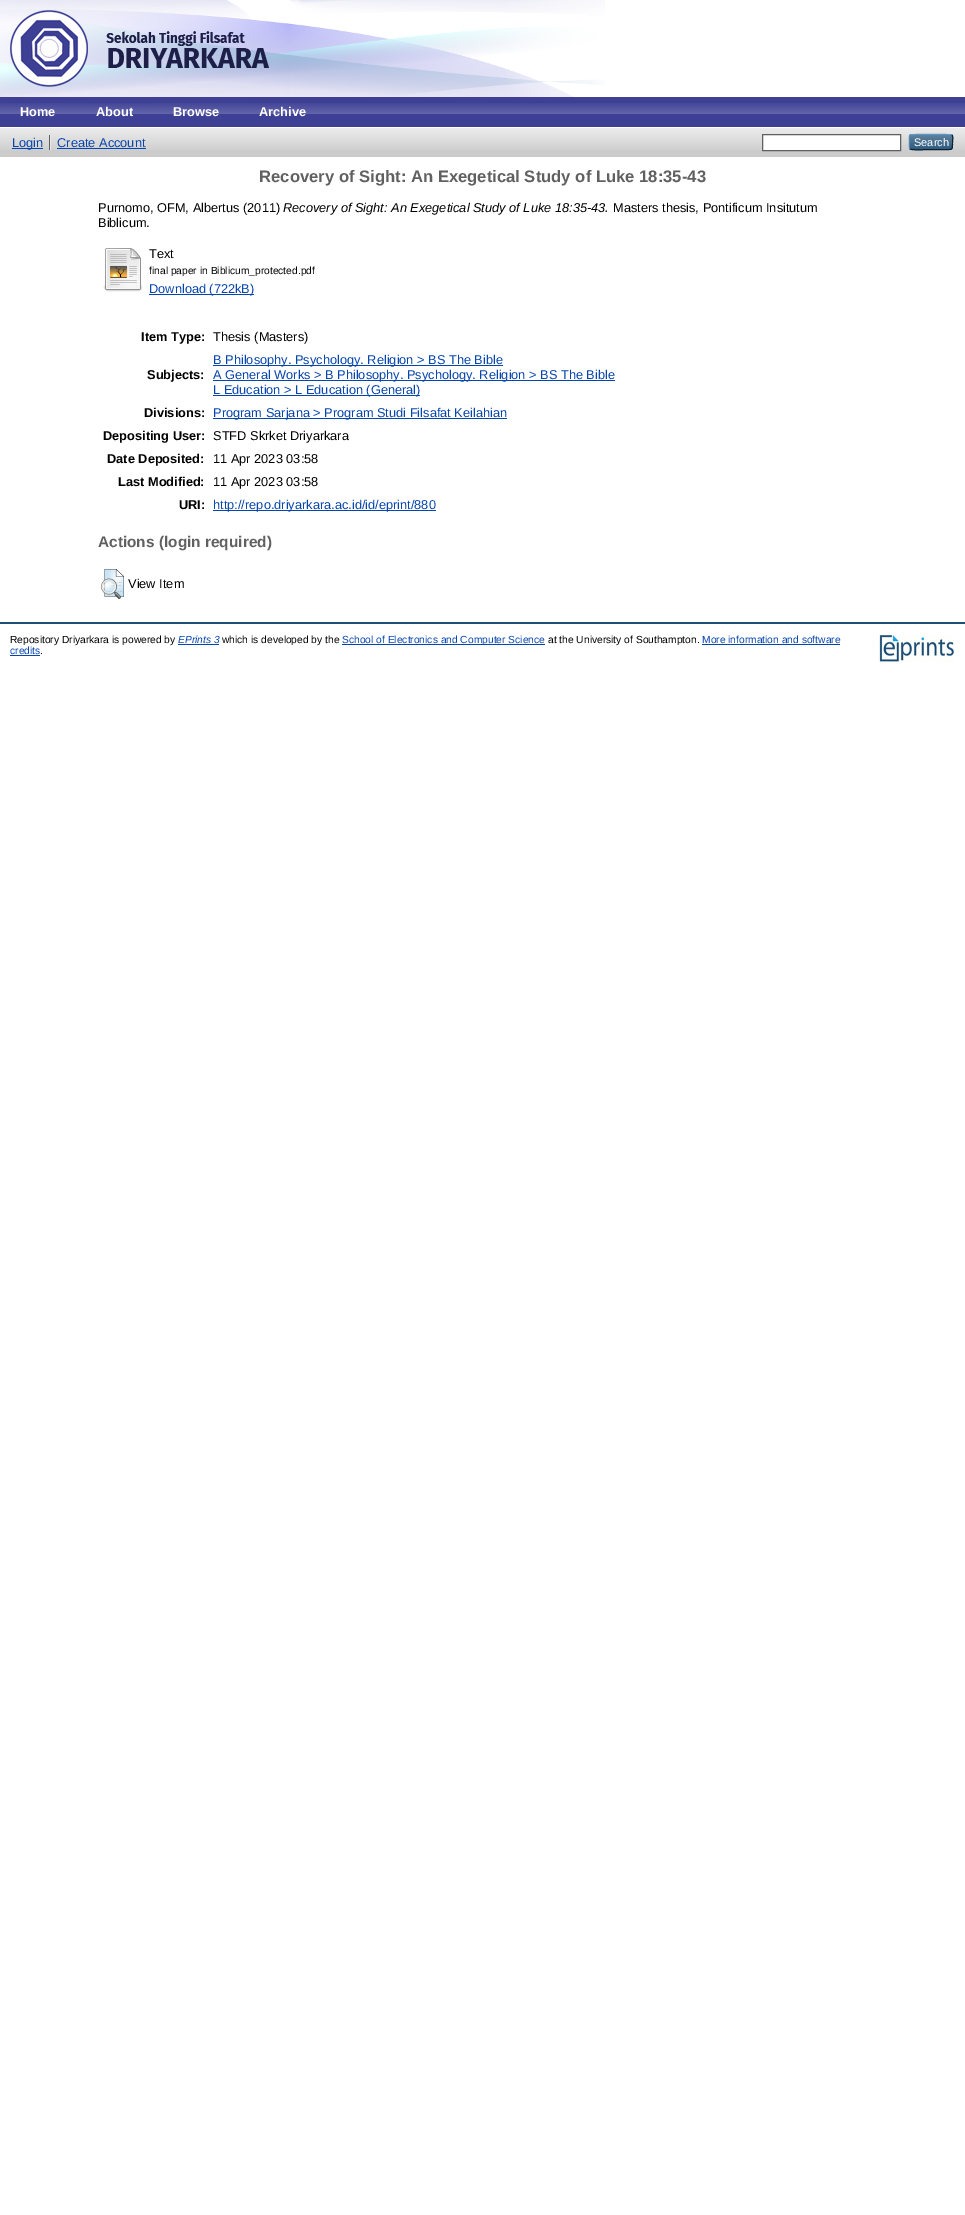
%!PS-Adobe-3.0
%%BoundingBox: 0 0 965 2215
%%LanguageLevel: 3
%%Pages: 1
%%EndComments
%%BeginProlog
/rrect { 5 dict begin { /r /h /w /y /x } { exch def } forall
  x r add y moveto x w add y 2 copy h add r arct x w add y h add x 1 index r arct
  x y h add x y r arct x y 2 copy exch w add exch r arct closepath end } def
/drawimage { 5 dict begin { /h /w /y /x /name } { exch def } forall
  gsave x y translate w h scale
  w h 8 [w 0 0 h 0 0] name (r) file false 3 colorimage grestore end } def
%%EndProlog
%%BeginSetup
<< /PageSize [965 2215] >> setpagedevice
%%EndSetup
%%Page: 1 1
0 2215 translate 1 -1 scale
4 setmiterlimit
1 setgray
0 0 965 2215 rectfill
(images/1.raw) 0 0 605 97 drawimage
(images/2.raw) 10 10 260 77 drawimage
0.243 0.251 0.584 setrgbcolor
0 97 965 30 rectfill
(images/3.raw) 0 103 965 11 drawimage
0.8 setgray
0 128 965 29 rectfill
(images/4.raw) 0 128 965 22 drawimage
0.376 setgray
49 135 1 15 rectfill
0.024 0.271 0.678 setrgbcolor
12 148 31 1 rectfill
0.91 setgray
50 135 1 15 rectfill
0.024 0.271 0.678 setrgbcolor
57 148 89 1 rectfill
1 setgray
newpath 762.5 134.5 moveto 900.5 134.5 lineto 900.5 150.5 lineto 762.5 150.5 lineto closepath gsave fill grestore
0.376 setgray
stroke
0.122 0.31 0.463 setrgbcolor
909 134 44 16 3 rrect fill
(images/5.raw) 909 134 44 16 drawimage
0.357 0.592 0.78 setrgbcolor
newpath 910 135 moveto 911.5 134 950.5 134 952 135 curveto stroke
0.051 0.129 0.192 setrgbcolor
newpath 952 135 moveto 953.5 137 952.5 140 952.5 142 curveto 952.5 150.5 953 149.5 943.5 149.5 curveto 931 149.5 lineto 928 149.5 912 150.5 910 149 curveto stroke
0.322 0.529 0.702 setrgbcolor
newpath 910 149 moveto 909 147.5 909.5 143.5 909.5 142 curveto 909.5 140.5 909 136.5 910 135 curveto stroke
(images/6.raw) 103 248 40 44 drawimage
0.024 0.271 0.678 setrgbcolor
149 294 105 1 rectfill
213 365 290 1 rectfill
213 380 402 1 rectfill
213 395 207 1 rectfill
213 418 294 1 rectfill
213 510 223 1 rectfill
(images/7.raw) 101 569 23 30 drawimage
0.125 0.31 0.463 setrgbcolor
0 622 965 2 rectfill
0.024 0.271 0.678 setrgbcolor
178 644 41 1 rectfill
342 644 203 1 rectfill
702 644 138 1 rectfill
10 655 30 1 rectfill
(images/8.raw) 878 635 76 28 drawimage
/LiberationSans-Bold [12.8 0 0 -12.8 0 0] selectfont
1 setgray
20 116 moveto (Home) show
96 116 moveto (About) show
173 116 moveto (Browse) show
259 116 moveto (Archive) show
/LiberationSans-Regular [12.8 0 0 -12.8 0 0] selectfont
0.024 0.271 0.678 setrgbcolor
12 147 moveto (Login) show
57 147 moveto (Create Account) show
/LiberationSans-Regular [11 0 0 -11 0 0] selectfont
1 setgray
914 146 moveto (Search) show
/LiberationSans-Bold [16.65 0 0 -16.65 0 0] selectfont
0.376 setgray
259 182 moveto (Recovery of Sight: An Exegetical Study of Luke 18:35-43) show
/LiberationSans-Regular [12.8 0 0 -12.8 0 0] selectfont
0 setgray
98 212 moveto (Purnomo, OFM, Albertus \(2011\)) show
/LiberationSans-Italic [12.8 0 0 -12.8 0 0] selectfont
283 212 moveto (Recovery of Sight: An Exegetical Study of Luke 18:35-43.) show
/LiberationSans-Regular [12.8 0 0 -12.8 0 0] selectfont
613 212 moveto (Masters thesis, Pontificum Insitutum) show
98 227 moveto (Biblicum.) show
149 258 moveto (Text) show
/LiberationSans-Regular [10.25 0 0 -10.25 0 0] selectfont
149 274 moveto (final paper in Biblicum_protected.pdf) show
/LiberationSans-Regular [12.8 0 0 -12.8 0 0] selectfont
0.024 0.271 0.678 setrgbcolor
149 293 moveto (Download \(722kB\)) show
/LiberationSans-Bold [12.8 0 0 -12.8 0 0] selectfont
0 setgray
141 341 moveto (Item Type:) show
/LiberationSans-Regular [12.8 0 0 -12.8 0 0] selectfont
213 341 moveto (Thesis \(Masters\)) show
/LiberationSans-Bold [12.8 0 0 -12.8 0 0] selectfont
147 379 moveto (Subjects:) show
/LiberationSans-Regular [12.8 0 0 -12.8 0 0] selectfont
0.024 0.271 0.678 setrgbcolor
213 364 moveto (B Philosophy. Psychology. Religion > BS The Bible) show
213 379 moveto (A General Works > B Philosophy. Psychology. Religion > BS The Bible) show
213 394 moveto (L Education > L Education \(General\)) show
/LiberationSans-Bold [12.8 0 0 -12.8 0 0] selectfont
0 setgray
144 417 moveto (Divisions:) show
/LiberationSans-Regular [12.8 0 0 -12.8 0 0] selectfont
0.024 0.271 0.678 setrgbcolor
213 417 moveto (Program Sarjana > Program Studi Filsafat Keilahian) show
/LiberationSans-Bold [12.8 0 0 -12.8 0 0] selectfont
0 setgray
103 440 moveto (Depositing User:) show
/LiberationSans-Regular [12.8 0 0 -12.8 0 0] selectfont
213 440 moveto (STFD Skrket Driyarkara) show
/LiberationSans-Bold [12.8 0 0 -12.8 0 0] selectfont
107 463 moveto (Date Deposited:) show
/LiberationSans-Regular [12.8 0 0 -12.8 0 0] selectfont
213 463 moveto (11 Apr 2023 03:58) show
/LiberationSans-Bold [12.8 0 0 -12.8 0 0] selectfont
118 486 moveto (Last Modified:) show
/LiberationSans-Regular [12.8 0 0 -12.8 0 0] selectfont
213 486 moveto (11 Apr 2023 03:58) show
/LiberationSans-Bold [12.8 0 0 -12.8 0 0] selectfont
179 509 moveto (URI:) show
/LiberationSans-Regular [12.8 0 0 -12.8 0 0] selectfont
0.024 0.271 0.678 setrgbcolor
213 509 moveto (http://repo.driyarkara.ac.id/id/eprint/880) show
/LiberationSans-Bold [15.4 0 0 -15.4 0 0] selectfont
0.376 setgray
98 547 moveto (Actions \(login required\)) show
/LiberationSans-Regular [12.8 0 0 -12.8 0 0] selectfont
0 setgray
128 588 moveto (View Item) show
/LiberationSans-Regular [10.25 0 0 -10.25 0 0] selectfont
10 643 moveto (Repository Driyarkara is powered by) show
/LiberationSans-Italic [10.25 0 0 -10.25 0 0] selectfont
0.024 0.271 0.678 setrgbcolor
178 643 moveto (EPrints 3) show
/LiberationSans-Regular [10.25 0 0 -10.25 0 0] selectfont
0 setgray
222 643 moveto (which is developed by the) show
0.024 0.271 0.678 setrgbcolor
342 643 moveto (School of Electronics and Computer Science) show
0 setgray
548 643 moveto (at the University of Southampton.) show
0.024 0.271 0.678 setrgbcolor
702 643 moveto (More information and software) show
10 654 moveto (credits) show
0 setgray
40 654 moveto (.) show
showpage
%%EOF
